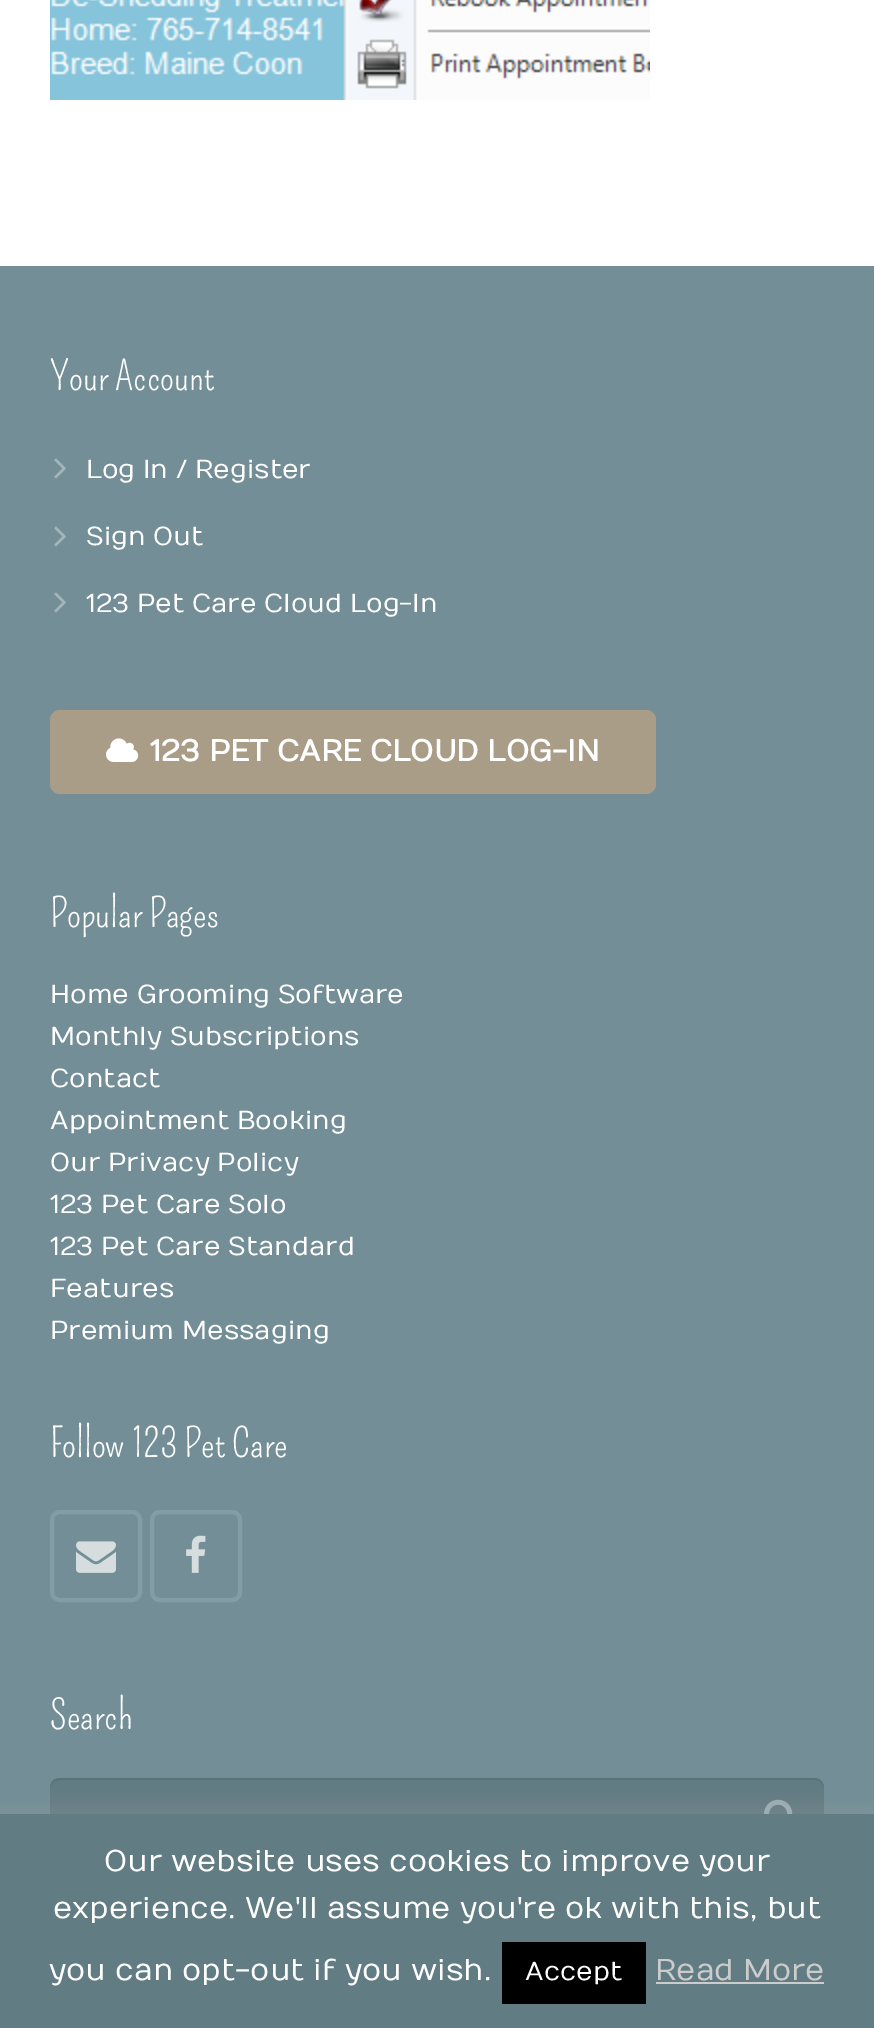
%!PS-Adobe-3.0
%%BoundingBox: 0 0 874 2028
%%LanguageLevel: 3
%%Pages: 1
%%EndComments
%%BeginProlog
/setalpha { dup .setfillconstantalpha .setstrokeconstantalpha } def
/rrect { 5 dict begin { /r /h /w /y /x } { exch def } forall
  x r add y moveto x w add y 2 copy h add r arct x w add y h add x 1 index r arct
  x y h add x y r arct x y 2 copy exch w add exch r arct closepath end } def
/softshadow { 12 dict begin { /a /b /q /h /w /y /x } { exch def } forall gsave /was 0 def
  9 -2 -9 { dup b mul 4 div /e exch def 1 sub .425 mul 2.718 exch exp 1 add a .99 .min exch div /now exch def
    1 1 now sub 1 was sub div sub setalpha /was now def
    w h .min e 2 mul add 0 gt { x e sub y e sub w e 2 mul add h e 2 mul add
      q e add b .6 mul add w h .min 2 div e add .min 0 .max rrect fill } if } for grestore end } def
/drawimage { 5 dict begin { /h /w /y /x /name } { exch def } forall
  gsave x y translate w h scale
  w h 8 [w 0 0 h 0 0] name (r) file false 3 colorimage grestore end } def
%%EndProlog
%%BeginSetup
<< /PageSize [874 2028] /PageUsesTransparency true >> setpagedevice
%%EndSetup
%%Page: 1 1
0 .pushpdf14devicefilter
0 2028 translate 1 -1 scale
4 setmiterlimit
0.451 0.557 0.588 setrgbcolor
0 0 874 2028 rectfill
1 setgray
0 0 874 266 rectfill
(images/1.raw) 50 0 600 100 drawimage
(images/2.raw) 54 458 12 21 drawimage
(images/2.raw) 54 526 12 21 drawimage
(images/2.raw) 54 592 12 21 drawimage
0.667 0.616 0.533 setrgbcolor
50 710 606 84 10 rrect fill
(images/3.raw) 106 738 33 24 drawimage
0.514 0.616 0.643 setrgbcolor
4 setlinewidth
52 1512 88 88 8 rrect stroke
(images/4.raw) 76 1541 40 32 drawimage
152 1512 88 88 8 rrect stroke
(images/5.raw) 186 1535 20 38 drawimage
0.384 0.486 0.514 setrgbcolor
50 1778 774 80 10 rrect fill
0.08 setalpha
0 setgray
newpath 60 1780 moveto 814 1780 lineto 820 1780 824 1784 824 1790 curveto 824 1788 lineto 824 1782 820 1778 814 1778 curveto 60 1778 lineto 54 1778 50 1782 50 1788 curveto 50 1790 lineto 50 1784 54 1780 60 1780 curveto closepath fill
1 setalpha
(images/6.raw) 764 1799 29 15 drawimage
0.675 0.671 0.671 setrgbcolor
0 1812 874 214 0 10 0.3 softshadow
0.384 0.486 0.514 setrgbcolor
0 1814 874 214 rectfill
0 setgray
502 1942 144 62 rectfill
0.8 setgray
656 1982 168 2 rectfill
/Pompiere-Regular [40 0 0 -40 0 0] selectfont
1 setgray
50 390 moveto (Your Account) show
/Numans-Regular [26 0 0 -26 0 0] selectfont
86 478 moveto (Log In / Register) show
86 545 moveto (Sign Out) show
86 612 moveto (123 Pet Care Cloud Log-In) show
/Numans-Bold [30 0 0 -30 0 0] selectfont
150 761 moveto (123 PET CARE CLOUD LOG-IN) show
/Pompiere-Regular [40 0 0 -40 0 0] selectfont
50 927 moveto (Popular Pages) show
/Numans-Regular [26 0 0 -26 0 0] selectfont
50 1003 moveto (Home Grooming Software) show
50 1045 moveto (Monthly Subscriptions) show
50 1087 moveto (Contact) show
50 1129 moveto (Appointment Booking) show
50 1171 moveto (Our Privacy Policy) show
50 1213 moveto (123 Pet Care Solo) show
50 1255 moveto (123 Pet Care Standard) show
50 1297 moveto (Features) show
50 1339 moveto (Premium Messaging) show
/Pompiere-Regular [40 0 0 -40 0 0] selectfont
50 1457 moveto (Follow 123 Pet Care) show
50 1729 moveto (Search) show
/Numans-Regular [30 0 0 -30 0 0] selectfont
104 1871 moveto (Our website uses cookies to improve your) show
53 1918 moveto (experience. We'll assume you're ok with this, but) show
49 1980 moveto (you can opt-out if you wish.) show
/Numans-Regular [26 0 0 -26 0 0] selectfont
525 1980 moveto (Accept) show
/Numans-Regular [30 0 0 -30 0 0] selectfont
0.8 setgray
655 1980 moveto (Read More) show
.poppdf14devicefilter showpage
%%EOF
